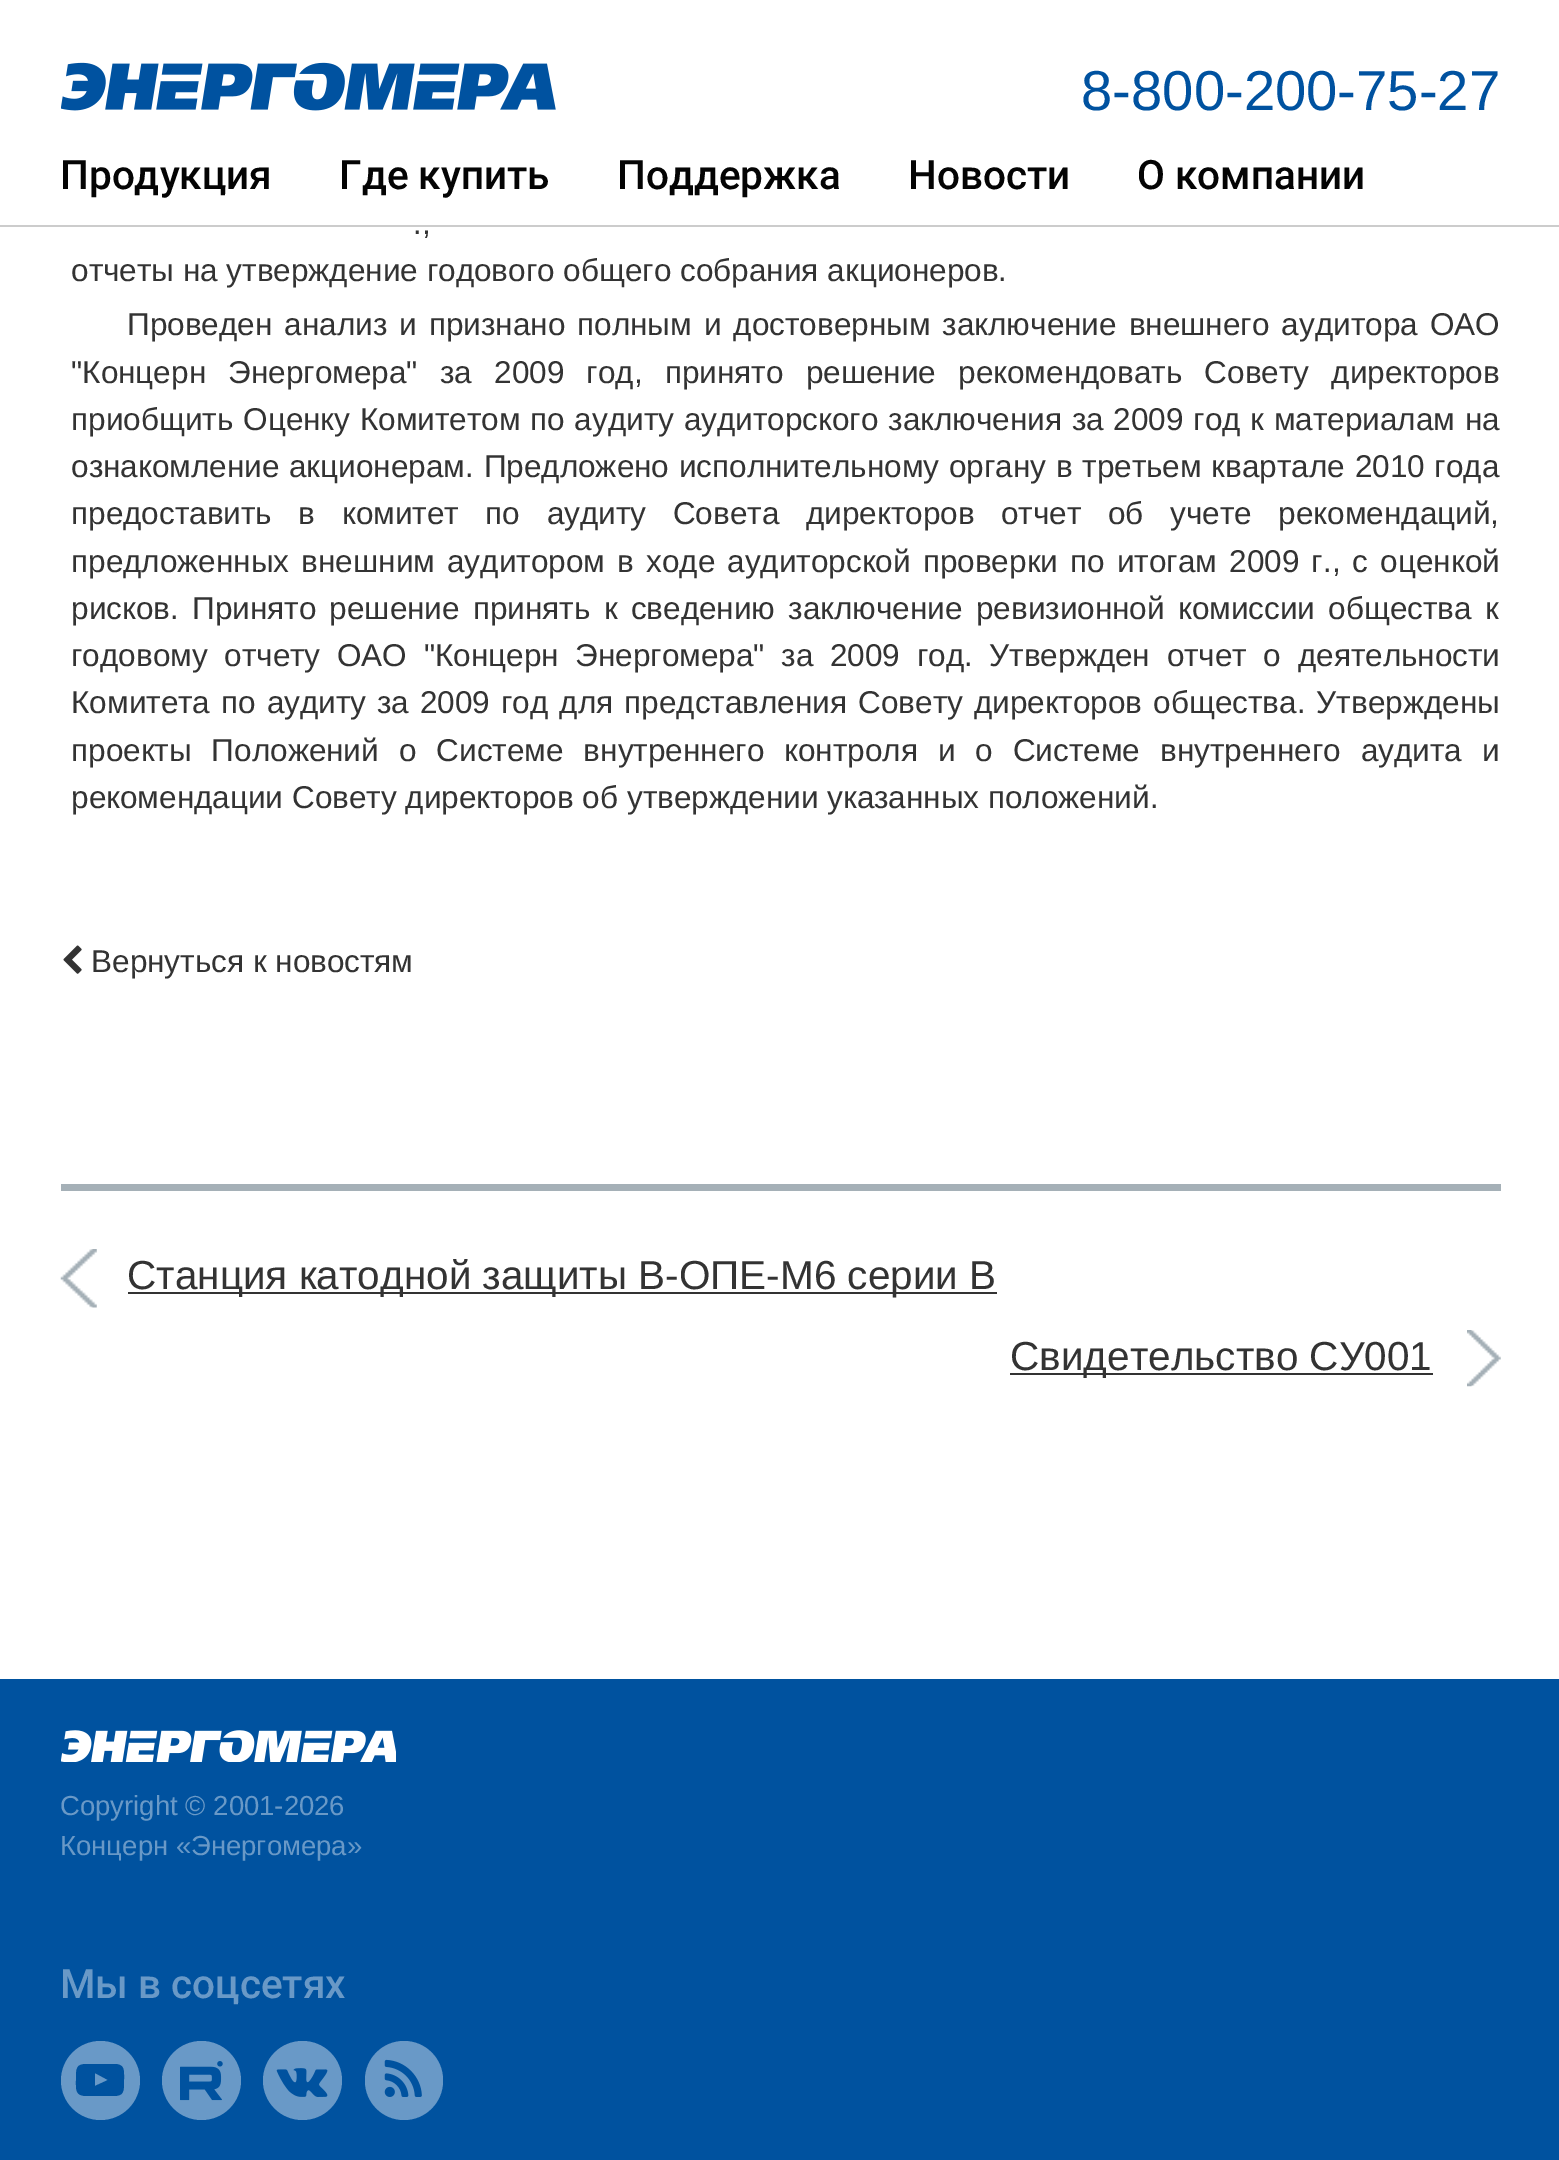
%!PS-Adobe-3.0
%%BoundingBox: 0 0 1559 2160
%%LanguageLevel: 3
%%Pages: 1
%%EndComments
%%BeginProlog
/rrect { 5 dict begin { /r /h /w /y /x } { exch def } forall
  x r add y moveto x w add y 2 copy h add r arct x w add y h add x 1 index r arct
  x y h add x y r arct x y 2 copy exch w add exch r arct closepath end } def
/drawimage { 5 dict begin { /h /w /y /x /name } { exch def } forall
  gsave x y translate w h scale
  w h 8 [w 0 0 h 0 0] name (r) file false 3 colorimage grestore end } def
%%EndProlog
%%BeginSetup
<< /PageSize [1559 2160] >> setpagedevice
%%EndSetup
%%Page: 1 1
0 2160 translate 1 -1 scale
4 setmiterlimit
1 setgray
0 0 1559 2160 rectfill
0.8 setgray
0 225 1559 2 rectfill
(images/1.raw) 61 62 495 49 drawimage
(images/2.raw) 63 945 19 29 drawimage
0.647 0.69 0.718 setrgbcolor
61 1184 1440 7 rectfill
(images/3.raw) 60 1249 37 59 drawimage
0.2 setgray
128 1292 869 2 rectfill
(images/4.raw) 1467 1330 34 57 drawimage
1010 1373 423 2 rectfill
0 0.322 0.624 setrgbcolor
0 1679 1559 481 rectfill
(images/5.raw) 61 1730 335 32 drawimage
0.412 0.6 0.78 setrgbcolor
newpath 100.5 2080.5 39.5 0 360 arc closepath fill
0 0.322 0.624 setrgbcolor
newpath 95 2086 moveto 108 2080 lineto 95 2073 lineto closepath 100 2064 moveto 114 2064 lineto 125 2064 124 2070 124 2080 curveto 124 2092 124 2096 113 2096 curveto 87 2096 lineto 75 2096 76 2090 76 2080 curveto 76 2068 76 2064 87 2064 curveto closepath fill
0.412 0.6 0.78 setrgbcolor
newpath 201.5 2080.5 39.5 0 360 arc closepath fill
(images/6.raw) 180 2061 43 40 drawimage
newpath 302.5 2080.5 39.5 0 360 arc closepath fill
(images/7.raw) 276 2068 52 29 drawimage
365 2041 78 79 39 rrect fill
(images/8.raw) 384 2059 38 38 drawimage
/LiberationSans-Regular [56.25 0 0 -56.25 0 0] selectfont
0 0.322 0.627 setrgbcolor
1081 110 moveto (8-800-200-75-27) show
/Roboto-Medium [40.5 0 0 -40.5 0 0] selectfont
0.016 setgray
60 189 moveto (Продукция) show
339 189 moveto (Где купить) show
617 189 moveto (Поддержка) show
908 189 moveto (Новости) show
1137 189 moveto (О компании) show
/LiberationSans-Regular [31.5 0 0 -31.5 0 0] selectfont
0.2 setgray
413 234 moveto 4 0 32 (.,) widthshow
71 281 moveto (отчеты на утверждение годового общего собрания акционеров.) show
127 335 moveto 3.25 0 32 (Проведен анализ и признано полным и достоверным заключение внешнего аудитора ОАО) widthshow
71 383 moveto 13.5 0 32 ("Концерн Энергомера" за 2009 год, принято решение рекомендовать Совету директоров) widthshow
71 430 moveto (приобщить) show
243 430 moveto 1 0 32 (Оценку Комитетом по аудиту аудиторского заключения за 2009 год) widthshow
1250 430 moveto 1 0 32 (к материалам на) widthshow
71 477 moveto 1 0 32 (ознакомление акционерам. Предложено исполнительному органу в третьем квартале 2010 года) widthshow
71 524 moveto 17.9 0 32 (предоставить в комитет по аудиту Совета директоров отчет об учете рекомендаций,) widthshow
71 572 moveto 3.4 0 32 (предложенных внешним аудитором в ходе аудиторской проверки по итогам 2009 г., с оценкой) widthshow
71 619 moveto 4.5 0 32 (рисков. Принято решение принять к сведению заключение ревизионной комиссии общества к) widthshow
71 666 moveto 7.9 0 32 (годовому отчету ОАО "Концерн Энергомера" за 2009 год. Утвержден отчет о деятельности) widthshow
71 713 moveto 2.25 0 32 (Комитета по аудиту за 2009 год для представления Совету директоров общества. Утверждены) widthshow
71 761 moveto 11.25 0 32 (проекты Положений о Системе внутреннего контроля и о Системе внутреннего аудита и) widthshow
71 808 moveto (рекомендации Совету директоров об утверждении указанных положений.) show
91 972 moveto (Вернуться к новостям) show
/LiberationSans-Regular [40.5 0 0 -40.5 0 0] selectfont
127 1289 moveto (Станция катодной защиты В-ОПЕ-М6 серии В) show
1010 1370 moveto (Свидетельство СУ001) show
/LiberationSans-Regular [27.5 0 0 -27.5 0 0] selectfont
0.412 0.6 0.78 setrgbcolor
60 1815 moveto (Copyright © 2001-2026) show
60 1855 moveto (Концерн «Энергомера») show
/Roboto-Medium [40.5 0 0 -40.5 0 0] selectfont
60 1998 moveto (Мы в соцсетях) show
showpage
%%EOF
